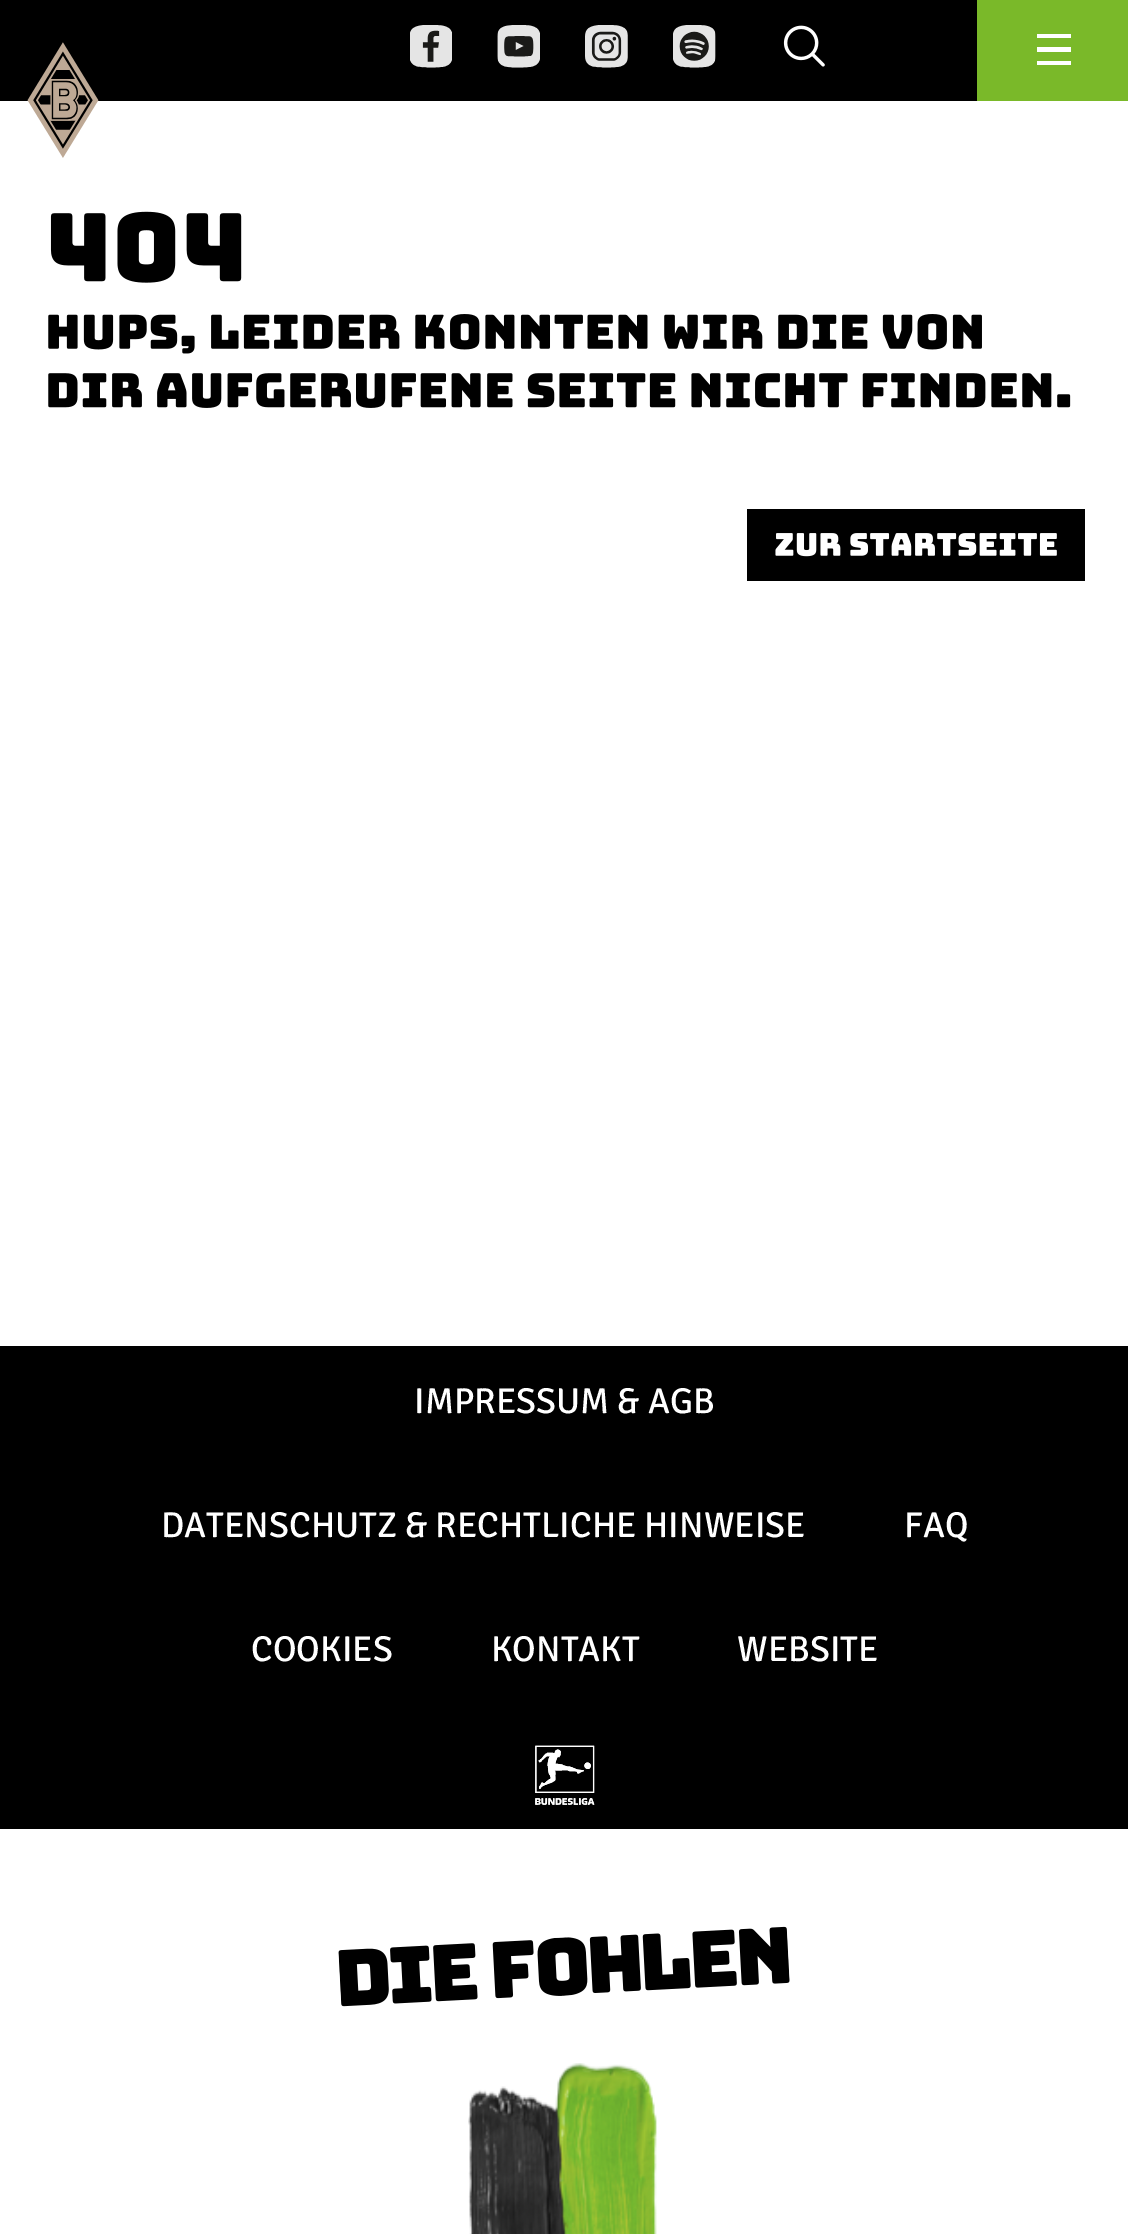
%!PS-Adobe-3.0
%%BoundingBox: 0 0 1128 2234
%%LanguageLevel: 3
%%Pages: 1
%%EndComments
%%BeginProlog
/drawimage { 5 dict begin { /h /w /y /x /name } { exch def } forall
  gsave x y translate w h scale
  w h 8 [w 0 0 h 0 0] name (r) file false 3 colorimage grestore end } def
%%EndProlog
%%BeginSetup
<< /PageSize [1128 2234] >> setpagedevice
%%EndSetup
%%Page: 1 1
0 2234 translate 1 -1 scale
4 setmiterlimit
1 setgray
0 0 1128 2234 rectfill
0 setgray
0 0 977 101 rectfill
(images/1.raw) 27 42 72 116 drawimage
(images/2.raw) 410 25 42 43 drawimage
(images/3.raw) 497 25 43 43 drawimage
(images/4.raw) 585 25 43 43 drawimage
(images/5.raw) 673 25 43 43 drawimage
(images/6.raw) 783 25 42 42 drawimage
0.478 0.725 0.161 setrgbcolor
977 0 151 101 rectfill
1 setgray
1037 34 34 4 rectfill
1037 47 34 5 rectfill
1037 61 34 4 rectfill
(images/7.raw) 50 211 192 72 drawimage
(images/8.raw) 48 314 934 40 drawimage
(images/9.raw) 48 373 1023 35 drawimage
0 setgray
747 509 338 72 rectfill
(images/10.raw) 775 533 282 24 drawimage
0 1346 1128 483 rectfill
(images/11.raw) 535 1745 60 60 drawimage
(images/12.raw) 468 2063 189 171 drawimage
(images/13.raw) 338 1926 452 81 drawimage
/Signika-Regular [36 0 0 -36 0 0] selectfont
1 setgray
414 1413 moveto (IMPRESSUM & AGB) show
161 1537 moveto (DATENSCHUTZ & RECHTLICHE HINWEISE) show
904 1537 moveto (FAQ) show
251 1661 moveto (COOKIES) show
491 1661 moveto (KONTAKT) show
737 1661 moveto (WEBSITE) show
showpage
%%EOF
